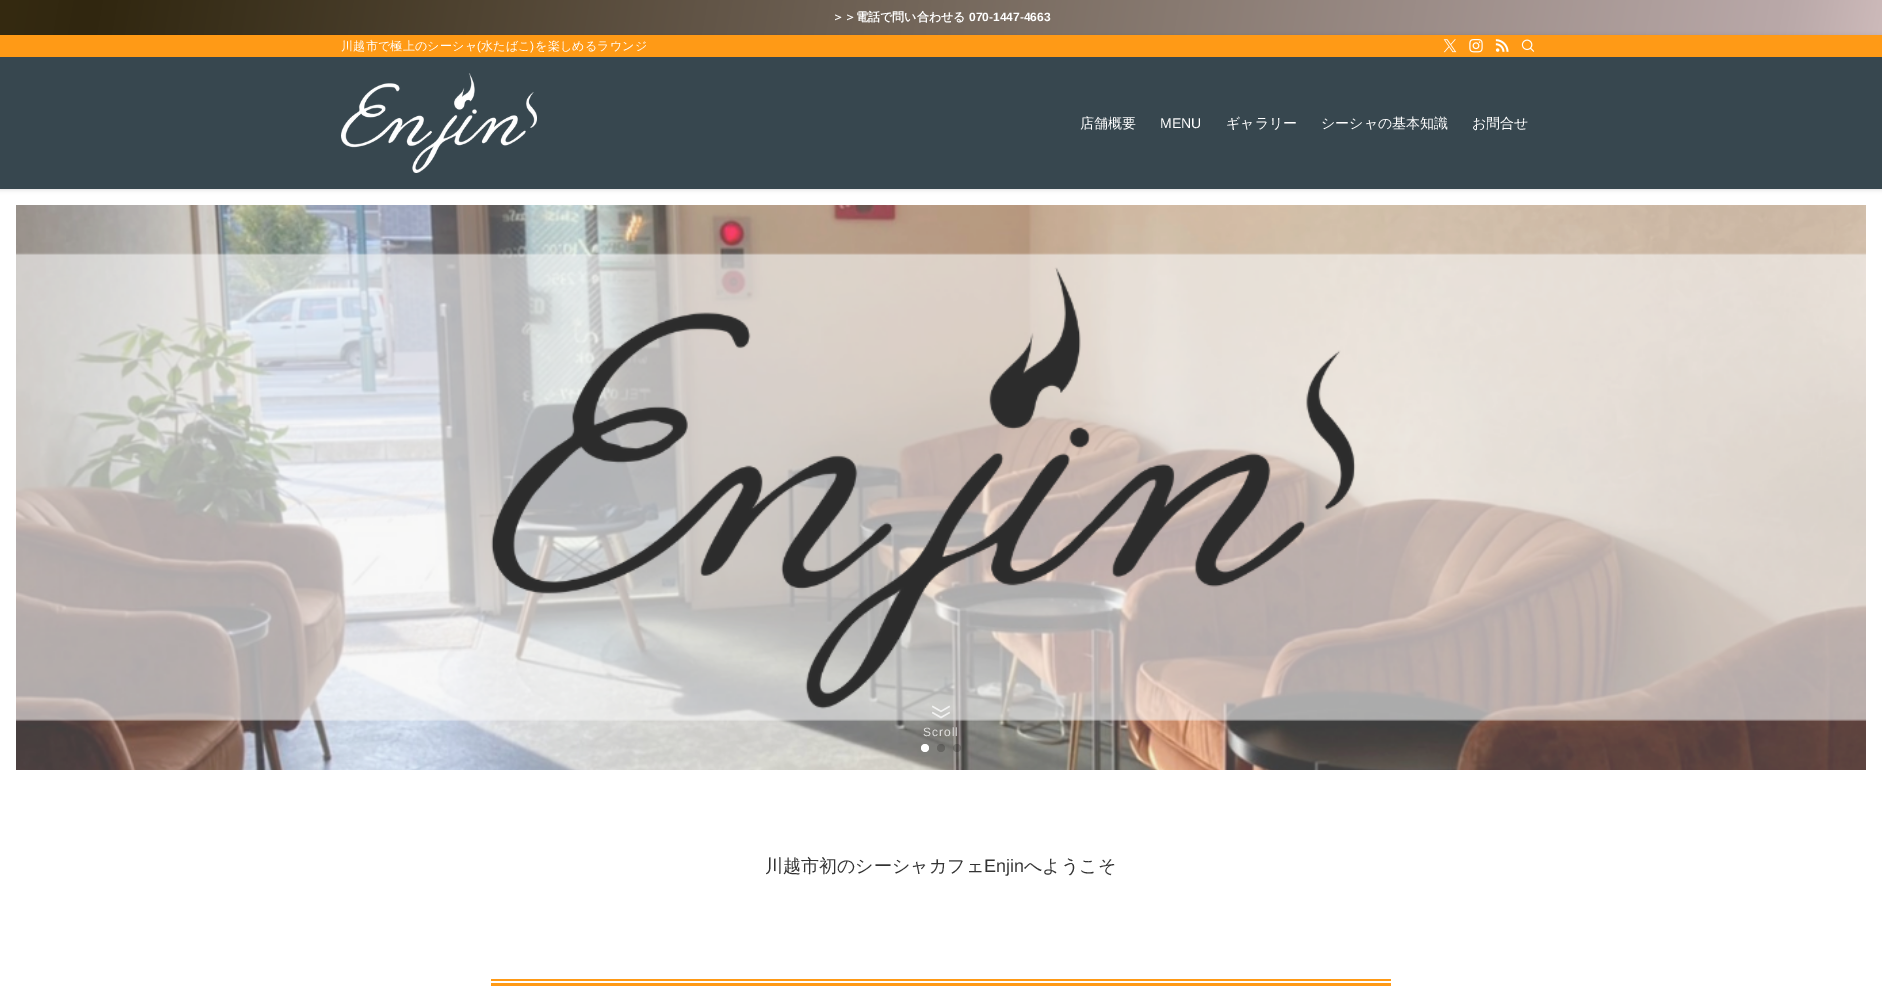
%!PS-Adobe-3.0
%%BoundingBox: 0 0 1882 986
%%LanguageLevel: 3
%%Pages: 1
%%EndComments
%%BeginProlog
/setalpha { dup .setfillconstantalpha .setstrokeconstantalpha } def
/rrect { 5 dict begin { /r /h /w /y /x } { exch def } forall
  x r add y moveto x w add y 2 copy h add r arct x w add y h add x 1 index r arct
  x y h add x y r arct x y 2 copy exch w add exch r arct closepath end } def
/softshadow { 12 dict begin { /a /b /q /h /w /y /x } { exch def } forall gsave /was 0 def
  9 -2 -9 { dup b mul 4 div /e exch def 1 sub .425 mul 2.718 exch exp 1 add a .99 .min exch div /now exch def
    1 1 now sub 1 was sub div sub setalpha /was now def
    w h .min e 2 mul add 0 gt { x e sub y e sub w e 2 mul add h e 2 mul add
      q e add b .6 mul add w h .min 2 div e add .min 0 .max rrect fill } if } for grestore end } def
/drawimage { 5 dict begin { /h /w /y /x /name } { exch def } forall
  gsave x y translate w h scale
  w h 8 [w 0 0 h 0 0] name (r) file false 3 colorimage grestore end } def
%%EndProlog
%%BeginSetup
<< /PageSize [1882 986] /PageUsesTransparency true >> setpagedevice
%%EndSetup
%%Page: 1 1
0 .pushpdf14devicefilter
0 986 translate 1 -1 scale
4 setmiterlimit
1 setgray
0 0 1882 986 rectfill
gsave newpath 0 0 moveto 1882 0 lineto 1882 35 lineto 0 35 lineto closepath clip newpath
<< /ShadingType 2 /ColorSpace /DeviceRGB /Coords [25 -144 1857 179] /Extend [true true] /Function << /FunctionType 3 /Domain [0 1] /Functions [<< /FunctionType 2 /Domain [0 1] /C0 [0.208 0.165 0.067] /C1 [0.188 0.149 0.059] /N 1 >> << /FunctionType 2 /Domain [0 1] /C0 [0.188 0.149 0.059] /C1 [0.729 0.663 0.663] /N 1 >> << /FunctionType 2 /Domain [0 1] /C0 [0.729 0.663 0.663] /C1 [0.804 0.729 0.729] /N 1 >>] /Bounds [0.05 0.95] /Encode [0 1 0 1 0 1] >> >> shfill grestore
0 setgray
0 36 1882 154 0 2 0.12 softshadow
0.216 0.278 0.31 setrgbcolor
0 57 1882 132 rectfill
1 0.604 0.086 setrgbcolor
0 35 1882 22 rectfill
(images/1.raw) 1443 39 14 14 drawimage
(images/2.raw) 1469 39 14 14 drawimage
(images/3.raw) 1495 39 14 13 drawimage
(images/4.raw) 1521 39 14 13 drawimage
(images/5.raw) 341 73 196 100 drawimage
(images/6.raw) 16 205 1850 565 drawimage
(images/7.raw) 932 705 18 14 drawimage
1 setgray
newpath 925 748 4 0 360 arc closepath fill
0.2 setalpha
0 setgray
newpath 941 748 4 0 360 arc closepath fill
newpath 957 748 4 0 360 arc closepath fill
1 setalpha
1 0.604 0.086 setrgbcolor
491 983 900 3 rectfill
491 979 900 2 rectfill
/WenQuanYiZenHei-Bold [12 0 0 -12 0 0] selectfont
1 setgray
832 21 moveto (＞＞電話で問い合わせる) show
/LiberationSans-Bold [12 0 0 -12 0 0] selectfont
969 21 moveto (070-1447-4663) show
/WenQuanYiZenHei-Medium [12 0 0 -12 0 0] selectfont
341 50 moveto 0.25 0 (川越市で極上のシーシャ) ashow
/LiberationSans-Regular [12 0 0 -12 0 0] selectfont
477 50 moveto 0.25 0 (\() ashow
/WenQuanYiZenHei-Medium [12 0 0 -12 0 0] selectfont
481 50 moveto 0.25 0 (水たばこ) ashow
/LiberationSans-Regular [12 0 0 -12 0 0] selectfont
530 50 moveto 0.25 0 (\)) ashow
/WenQuanYiZenHei-Medium [12 0 0 -12 0 0] selectfont
535 50 moveto 0.25 0 (を楽しめるラウンジ) ashow
/WenQuanYiZenHei-Medium [14 0 0 -14 0 0] selectfont
1080 128 moveto (店舗概要) show
/LiberationSans-Regular [14 0 0 -14 0 0] selectfont
1160 128 moveto (MENU) show
/WenQuanYiZenHei-Medium [14 0 0 -14 0 0] selectfont
1226 128 moveto (ギャラリー) show
1321 128 moveto (シーシャの基本知識) show
1472 128 moveto (お問合せ) show
/LiberationSans-Regular [12 0 0 -12 0 0] selectfont
0.871 0.871 0.863 setrgbcolor
923 736 moveto 1 0 (Scroll) ashow
/WenQuanYiZenHei-Medium [18 0 0 -18 0 0] selectfont
0.2 setgray
765 872 moveto (川越市初のシーシャカフェ) show
/LiberationSans-Regular [18 0 0 -18 0 0] selectfont
984 872 moveto (Enjin) show
/WenQuanYiZenHei-Medium [18 0 0 -18 0 0] selectfont
1024 872 moveto (へようこそ) show
.poppdf14devicefilter showpage
%%EOF
